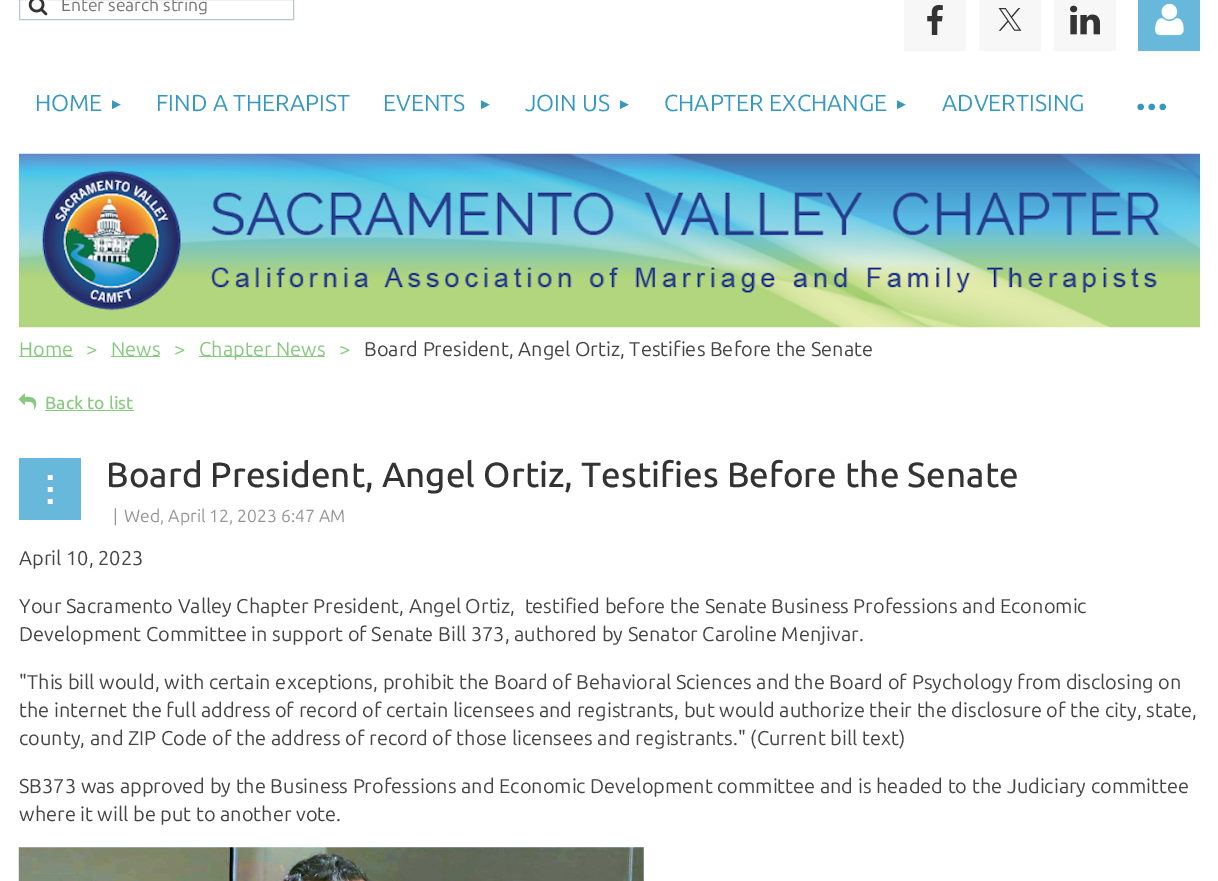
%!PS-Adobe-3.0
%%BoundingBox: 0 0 1218 881
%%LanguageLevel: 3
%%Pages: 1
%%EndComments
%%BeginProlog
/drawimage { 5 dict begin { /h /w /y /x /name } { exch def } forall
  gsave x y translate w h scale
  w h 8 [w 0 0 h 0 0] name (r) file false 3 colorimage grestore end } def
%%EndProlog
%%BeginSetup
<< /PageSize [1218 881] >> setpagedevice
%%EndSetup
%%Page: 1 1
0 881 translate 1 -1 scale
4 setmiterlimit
1 setgray
0 0 1218 881 rectfill
0.722 0.776 0.804 setrgbcolor
19.5 -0.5 274 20 rectstroke
(images/1.raw) 28 0 20 16 drawimage
0.969 setgray
904 0 62 51 rectfill
(images/2.raw) 927 5 16 30 drawimage
979 0 62 51 rectfill
(images/3.raw) 998 8 24 23 drawimage
1054 0 62 51 rectfill
(images/4.raw) 1070 5 30 30 drawimage
0.404 0.722 0.859 setrgbcolor
1138 0 62 51 rectfill
(images/5.raw) 1155 3 29 33 drawimage
(images/6.raw) 18 153 1182 175 drawimage
0.529 0.788 0.498 setrgbcolor
19 356 54 1 rectfill
111 356 49 1 rectfill
199 356 126 1 rectfill
(images/7.raw) 18 393 19 17 drawimage
45 410 89 1 rectfill
0.404 0.722 0.859 setrgbcolor
19 458 62 62 rectfill
(images/8.raw) 18 847 626 34 drawimage
/Ubuntu-Regular [17.5 0 0 -17.5 0 0] selectfont
0.459 setgray
61 11 moveto (Enter search string) show
/Ubuntu-Regular [23.25 0 0 -23.25 0 0] selectfont
0.208 0.596 0.757 setrgbcolor
35 111 moveto (HOME) show
/LiberationSans-Regular [15 0 0 -15 0 0] selectfont
109 109 moveto (►) show
/Ubuntu-Regular [23.25 0 0 -23.25 0 0] selectfont
156 111 moveto (FIND A THERAPIST) show
383 111 moveto (EVENTS) show
/LiberationSans-Regular [15 0 0 -15 0 0] selectfont
478 109 moveto (►) show
/Ubuntu-Regular [23.25 0 0 -23.25 0 0] selectfont
525 111 moveto (JOIN US) show
/LiberationSans-Regular [15 0 0 -15 0 0] selectfont
617 109 moveto (►) show
/Ubuntu-Regular [23.25 0 0 -23.25 0 0] selectfont
664 111 moveto (CHAPTER EXCHANGE) show
/LiberationSans-Regular [15 0 0 -15 0 0] selectfont
894 109 moveto (►) show
/Ubuntu-Regular [23.25 0 0 -23.25 0 0] selectfont
942 111 moveto (ADVERTISING) show
/Ubuntu-Regular [55 0 0 -55 0 0] selectfont
1134 123 moveto -2.5 0 (···) ashow
/Ubuntu-Regular [20 0 0 -20 0 0] selectfont
0.529 0.788 0.498 setrgbcolor
19 356 moveto (Home) show
86 356 moveto (>) show
111 356 moveto (News) show
174 356 moveto (>) show
199 356 moveto (Chapter News) show
339 356 moveto (>) show
0.267 setgray
364 356 moveto (Board President, Angel Ortiz, Testifies Before the Senate) show
/Ubuntu-Medium [17.5 0 0 -17.5 0 0] selectfont
0.529 0.788 0.498 setrgbcolor
45 409 moveto (Back to list) show
/LiberationSerif-Regular [20 0 0 -20 0 0] selectfont
1 setgray
gsave 44 474 translate 90 rotate 0 0 moveto 5 0 (▪▪▪) ashow grestore
/Ubuntu-Medium [35 0 0 -35 0 0] selectfont
0.2 setgray
106 487 moveto (Board President, Angel Ortiz, Testifies Before the Senate) show
/Ubuntu-Regular [17.5 0 0 -17.5 0 0] selectfont
0.584 setgray
113 522 moveto (|) show
124 522 moveto (Wed, April 12, 2023 6:47 AM) show
/Ubuntu-Regular [20 0 0 -20 0 0] selectfont
0.267 setgray
19 565 moveto (April 10, 2023) show
19 613 moveto (Your Sacramento Valley Chapter President, Angel Ortiz,  testified before the Senate Business Professions and Economic) show
19 641 moveto (Development Committee in support of Senate Bill 373, authored by Senator Caroline Menjivar.) show
19 689 moveto ("This bill would, with certain exceptions, prohibit the Board of Behavioral Sciences and the Board of Psychology from disclosing on) show
19 717 moveto (the internet the full address of record of certain licensees and registrants, but would authorize their the disclosure of the city, state,) show
19 745 moveto (county, and ZIP Code of the address of record of those licensees and registrants." \(Current bill text\)) show
19 793 moveto (SB373 was approved by the Business Professions and Economic Development committee and is headed to the Judiciary committee) show
19 821 moveto (where it will be put to another vote.) show
showpage
%%EOF
